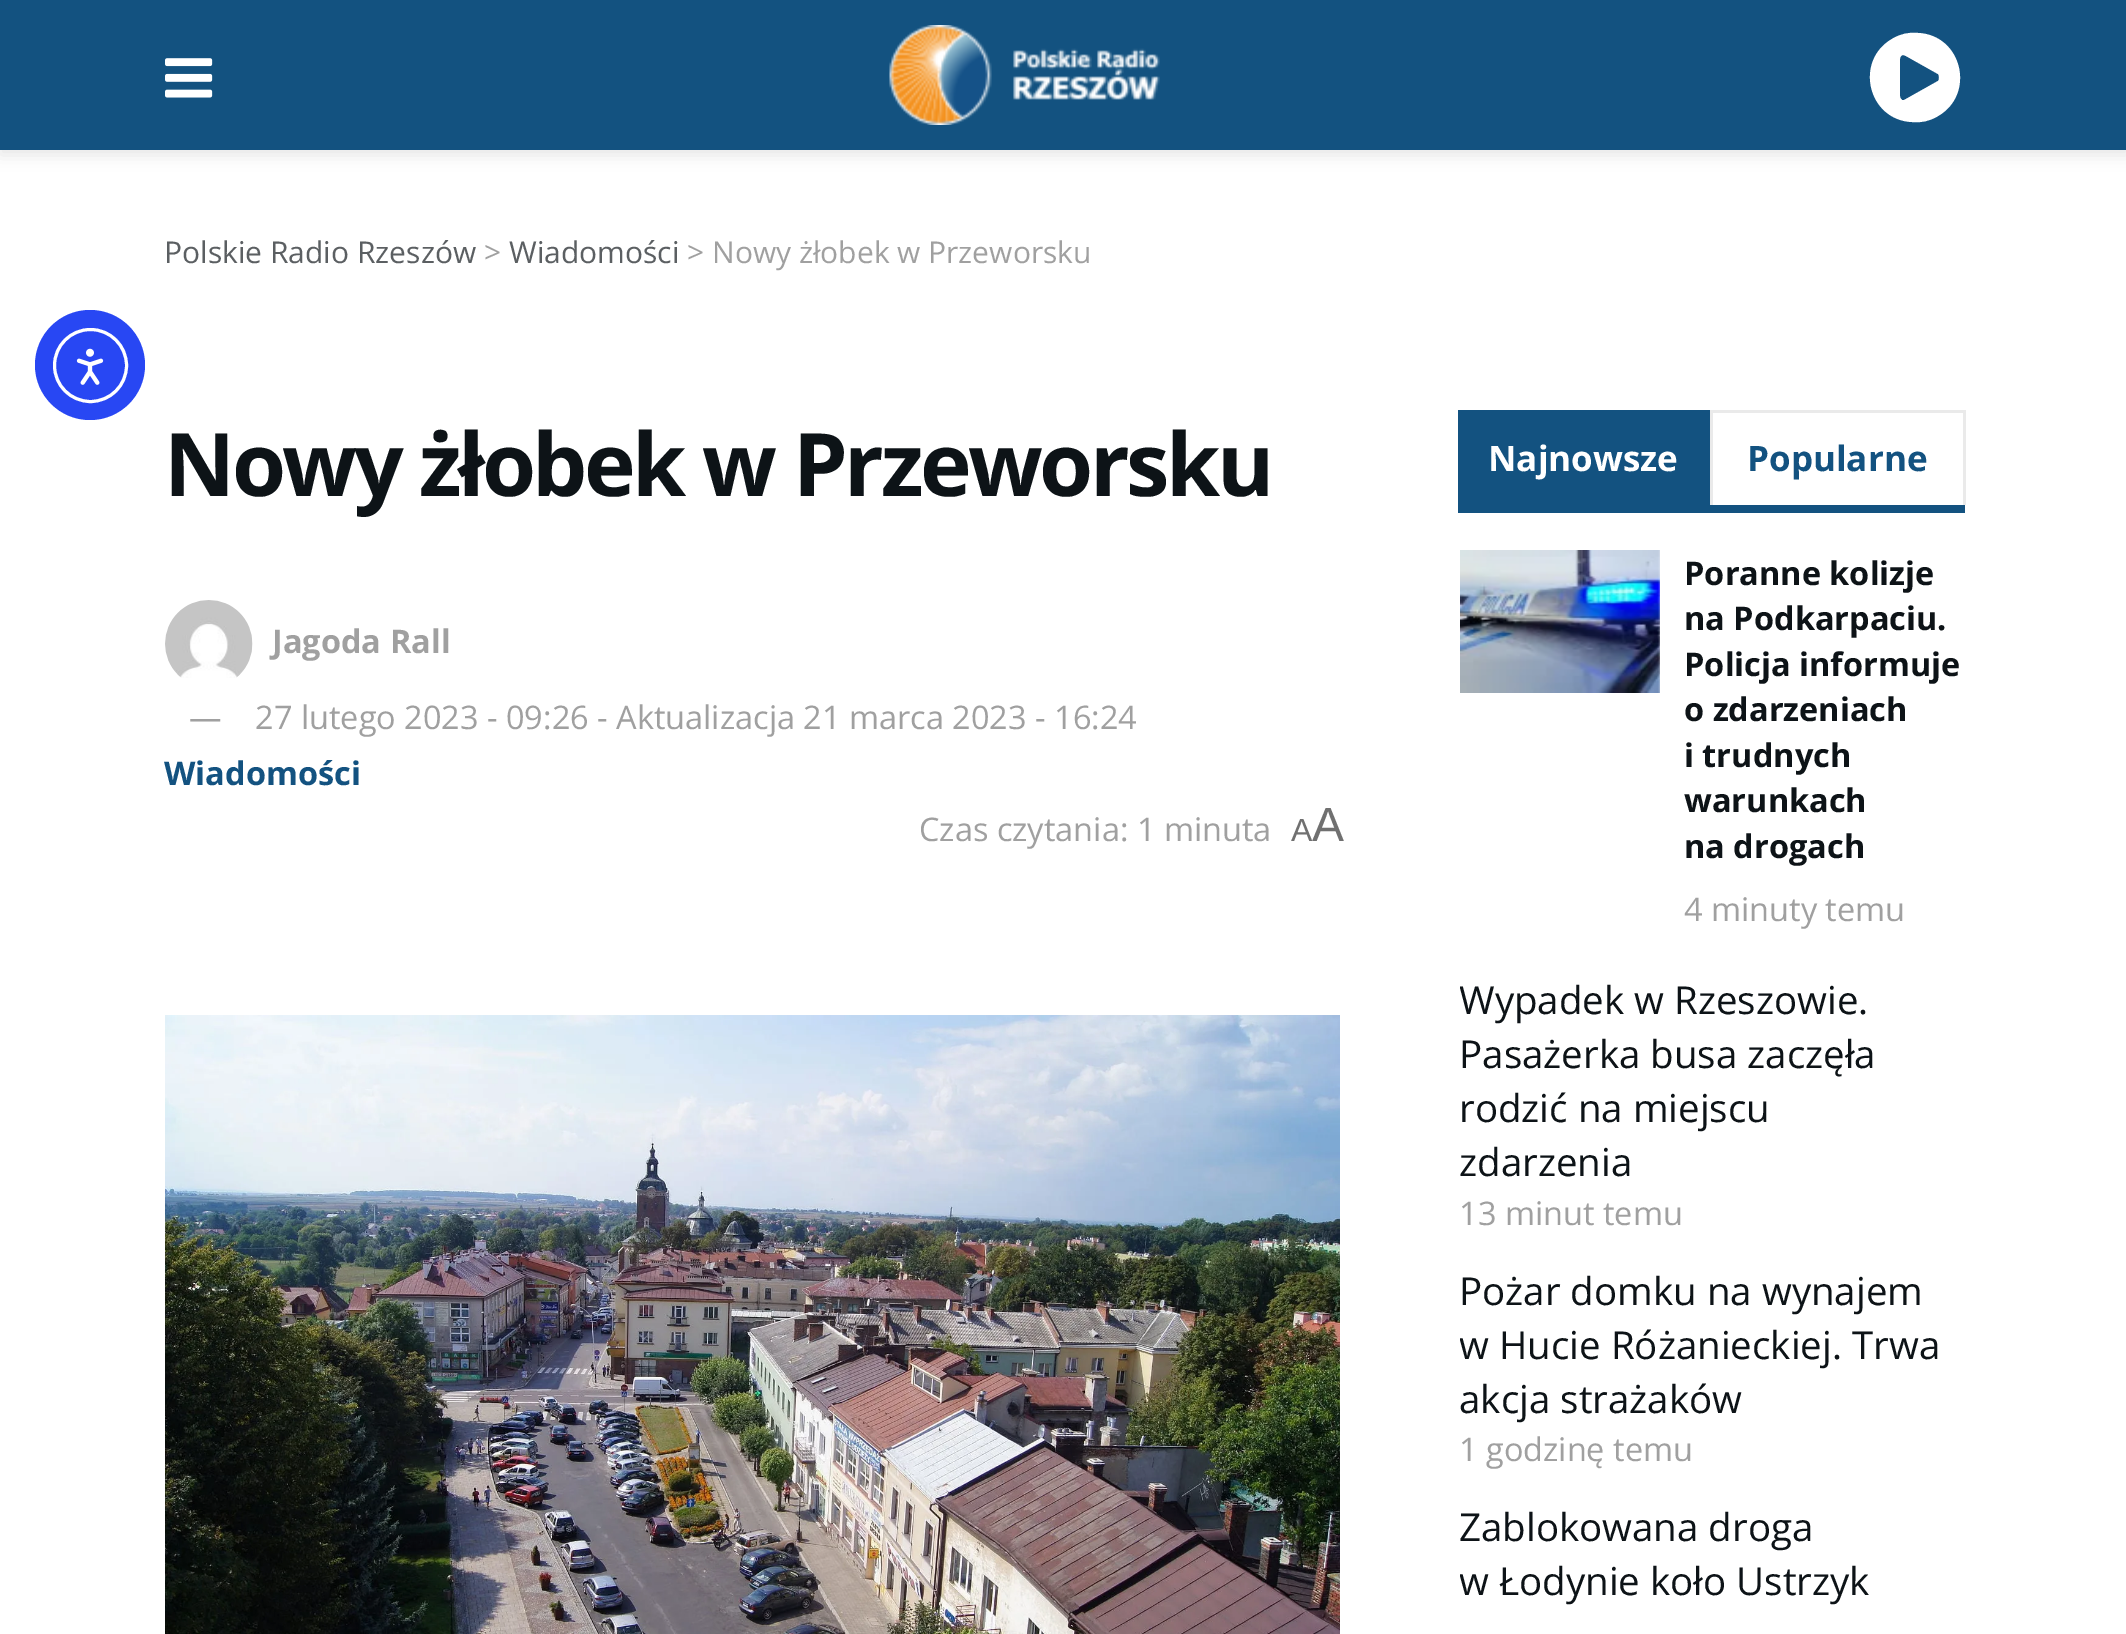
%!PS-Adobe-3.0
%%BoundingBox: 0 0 2126 1634
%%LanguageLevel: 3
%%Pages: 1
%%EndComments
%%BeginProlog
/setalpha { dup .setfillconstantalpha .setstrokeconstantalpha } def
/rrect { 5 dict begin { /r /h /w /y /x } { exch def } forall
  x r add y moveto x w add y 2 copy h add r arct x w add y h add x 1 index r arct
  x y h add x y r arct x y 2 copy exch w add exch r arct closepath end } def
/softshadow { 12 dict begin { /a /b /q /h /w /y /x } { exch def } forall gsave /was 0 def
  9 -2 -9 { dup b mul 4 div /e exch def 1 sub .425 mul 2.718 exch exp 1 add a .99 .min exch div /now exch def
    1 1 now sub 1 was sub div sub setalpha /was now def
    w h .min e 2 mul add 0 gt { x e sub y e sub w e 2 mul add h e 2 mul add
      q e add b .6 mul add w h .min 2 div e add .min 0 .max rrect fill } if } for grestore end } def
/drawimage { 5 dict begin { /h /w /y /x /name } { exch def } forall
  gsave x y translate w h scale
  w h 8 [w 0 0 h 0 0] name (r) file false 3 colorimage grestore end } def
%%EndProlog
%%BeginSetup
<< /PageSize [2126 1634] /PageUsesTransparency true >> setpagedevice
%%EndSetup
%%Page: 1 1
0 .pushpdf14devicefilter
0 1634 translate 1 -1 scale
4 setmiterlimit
1 setgray
0 0 2126 1634 rectfill
0.157 0.278 0.953 setrgbcolor
newpath 90 365 55 0 360 arc closepath fill
1 setgray
3 setlinewidth
newpath 90.5 365.5 36 0 360 arc closepath stroke
(images/1.raw) 76 348 28 37 drawimage
0 setgray
0 5 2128 150 0 7.5 0.1 softshadow
0.075 0.322 0.502 setrgbcolor
0 0 2126 150 rectfill
(images/2.raw) 165 58 48 40 drawimage
(images/3.raw) 889 25 271 100 drawimage
1 setgray
newpath 1892 39 moveto 1900 34 1909 32 1918 33 curveto 1962 35 1976 94 1938 116 curveto 1930 121 1921 123 1912 122 curveto 1868 120 1854 61 1892 39 curveto closepath 1938 81 moveto 1939 80 1939 79 1939 78 curveto 1939 76 1939 75 1938 74 curveto 1906 56 lineto 1904 55 1903 55 1902 55 curveto 1901 56 1900 57 1900 59 curveto 1900 96 lineto 1900 98 1901 99 1902 100 curveto 1904 100 lineto 1906 99 lineto closepath fill
(images/4.raw) 165 600 88 78 drawimage
(images/5.raw) 165 1015 1175 619 drawimage
0.075 0.322 0.502 setrgbcolor
1458 505 507 8 rectfill
1458 410 252 95 rectfill
0.918 setgray
1710 410 255 3 rectfill
1963 410 3 95 rectfill
1710 410 3 95 rectfill
(images/6.raw) 1460 550 200 143 drawimage
/OpenSans-Regular [30 0 0 -30 0 0] selectfont
0.357 0.373 0.384 setrgbcolor
164 263 moveto (Polskie Radio Rzeszów) show
0.627 setgray
484 263 moveto (>) show
0.357 0.373 0.384 setrgbcolor
509 263 moveto (Wiadomości) show
0.627 setgray
687 263 moveto (> Nowy żłobek w Przeworsku) show
/OpenSans-Bold [87.5 0 0 -87.5 0 0] selectfont
0.051 0.075 0.09 setrgbcolor
164 496 moveto -3.5 0 (Nowy żłobek w Przeworsku) ashow
/OpenSans-Bold [32.5 0 0 -32.5 0 0] selectfont
0.627 setgray
272 653 moveto (Jagoda Rall) show
/OpenSans-Regular [32.5 0 0 -32.5 0 0] selectfont
189 729 moveto (—) show
255 729 moveto (27 lutego 2023 - 09:26 - Aktualizacja 21 marca 2023 - 16:24) show
/OpenSans-Bold [32.5 0 0 -32.5 0 0] selectfont
0.075 0.322 0.502 setrgbcolor
164 785 moveto (Wiadomości) show
/OpenSans-Regular [32.5 0 0 -32.5 0 0] selectfont
0.627 setgray
919 841 moveto (Czas czytania: 1 minuta) show
/LiberationSans-Regular [32 0 0 -32 0 0] selectfont
0.439 setgray
1291 841 moveto (A) show
/LiberationSans-Regular [48 0 0 -48 0 0] selectfont
1312 841 moveto (A) show
/OpenSans-Bold [35 0 0 -35 0 0] selectfont
1 setgray
1488 471 moveto (Najnowsze) show
0.075 0.322 0.502 setrgbcolor
1747 471 moveto (Popularne) show
/OpenSans-Bold [32.5 0 0 -32.5 0 0] selectfont
0.051 0.075 0.09 setrgbcolor
1684 585 moveto (Poranne kolizje) show
1684 630 moveto (na Podkarpaciu.) show
1684 676 moveto (Policja informuje) show
1684 721 moveto (o zdarzeniach) show
1684 767 moveto (i trudnych) show
1684 812 moveto (warunkach) show
1684 858 moveto (na drogach) show
/OpenSans-Regular [32.5 0 0 -32.5 0 0] selectfont
0.627 setgray
1684 921 moveto (4 minuty temu) show
gsave
1460 975 503 260 rectclip
/OpenSans-Regular [38.5 0 0 -38.5 0 0] selectfont
0.051 0.075 0.09 setrgbcolor
1459 1014 moveto (Wypadek w Rzeszowie.) show
grestore
/OpenSans-Regular [38.5 0 0 -38.5 0 0] selectfont
0.051 0.075 0.09 setrgbcolor
1459 1068 moveto (Pasażerka busa zaczęła) show
1459 1122 moveto (rodzić na miejscu) show
1459 1176 moveto (zdarzenia) show
/OpenSans-Regular [32.5 0 0 -32.5 0 0] selectfont
0.627 setgray
1459 1225 moveto (13 minut temu) show
/OpenSans-Regular [38.5 0 0 -38.5 0 0] selectfont
0.051 0.075 0.09 setrgbcolor
1459 1305 moveto (Pożar domku na wynajem) show
gsave
1460 1265 503 208 rectclip
1459 1359 moveto (w Hucie Różanieckiej. Trwa) show
grestore
1459 1413 moveto (akcja strażaków) show
/OpenSans-Regular [32.5 0 0 -32.5 0 0] selectfont
0.627 setgray
1459 1461 moveto (1 godzinę temu) show
/OpenSans-Regular [38.5 0 0 -38.5 0 0] selectfont
0.051 0.075 0.09 setrgbcolor
1459 1541 moveto (Zablokowana droga) show
gsave
1460 1503 503 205 rectclip
1459 1595 moveto (w Łodynie koło Ustrzyk) show
grestore
.poppdf14devicefilter showpage
%%EOF
